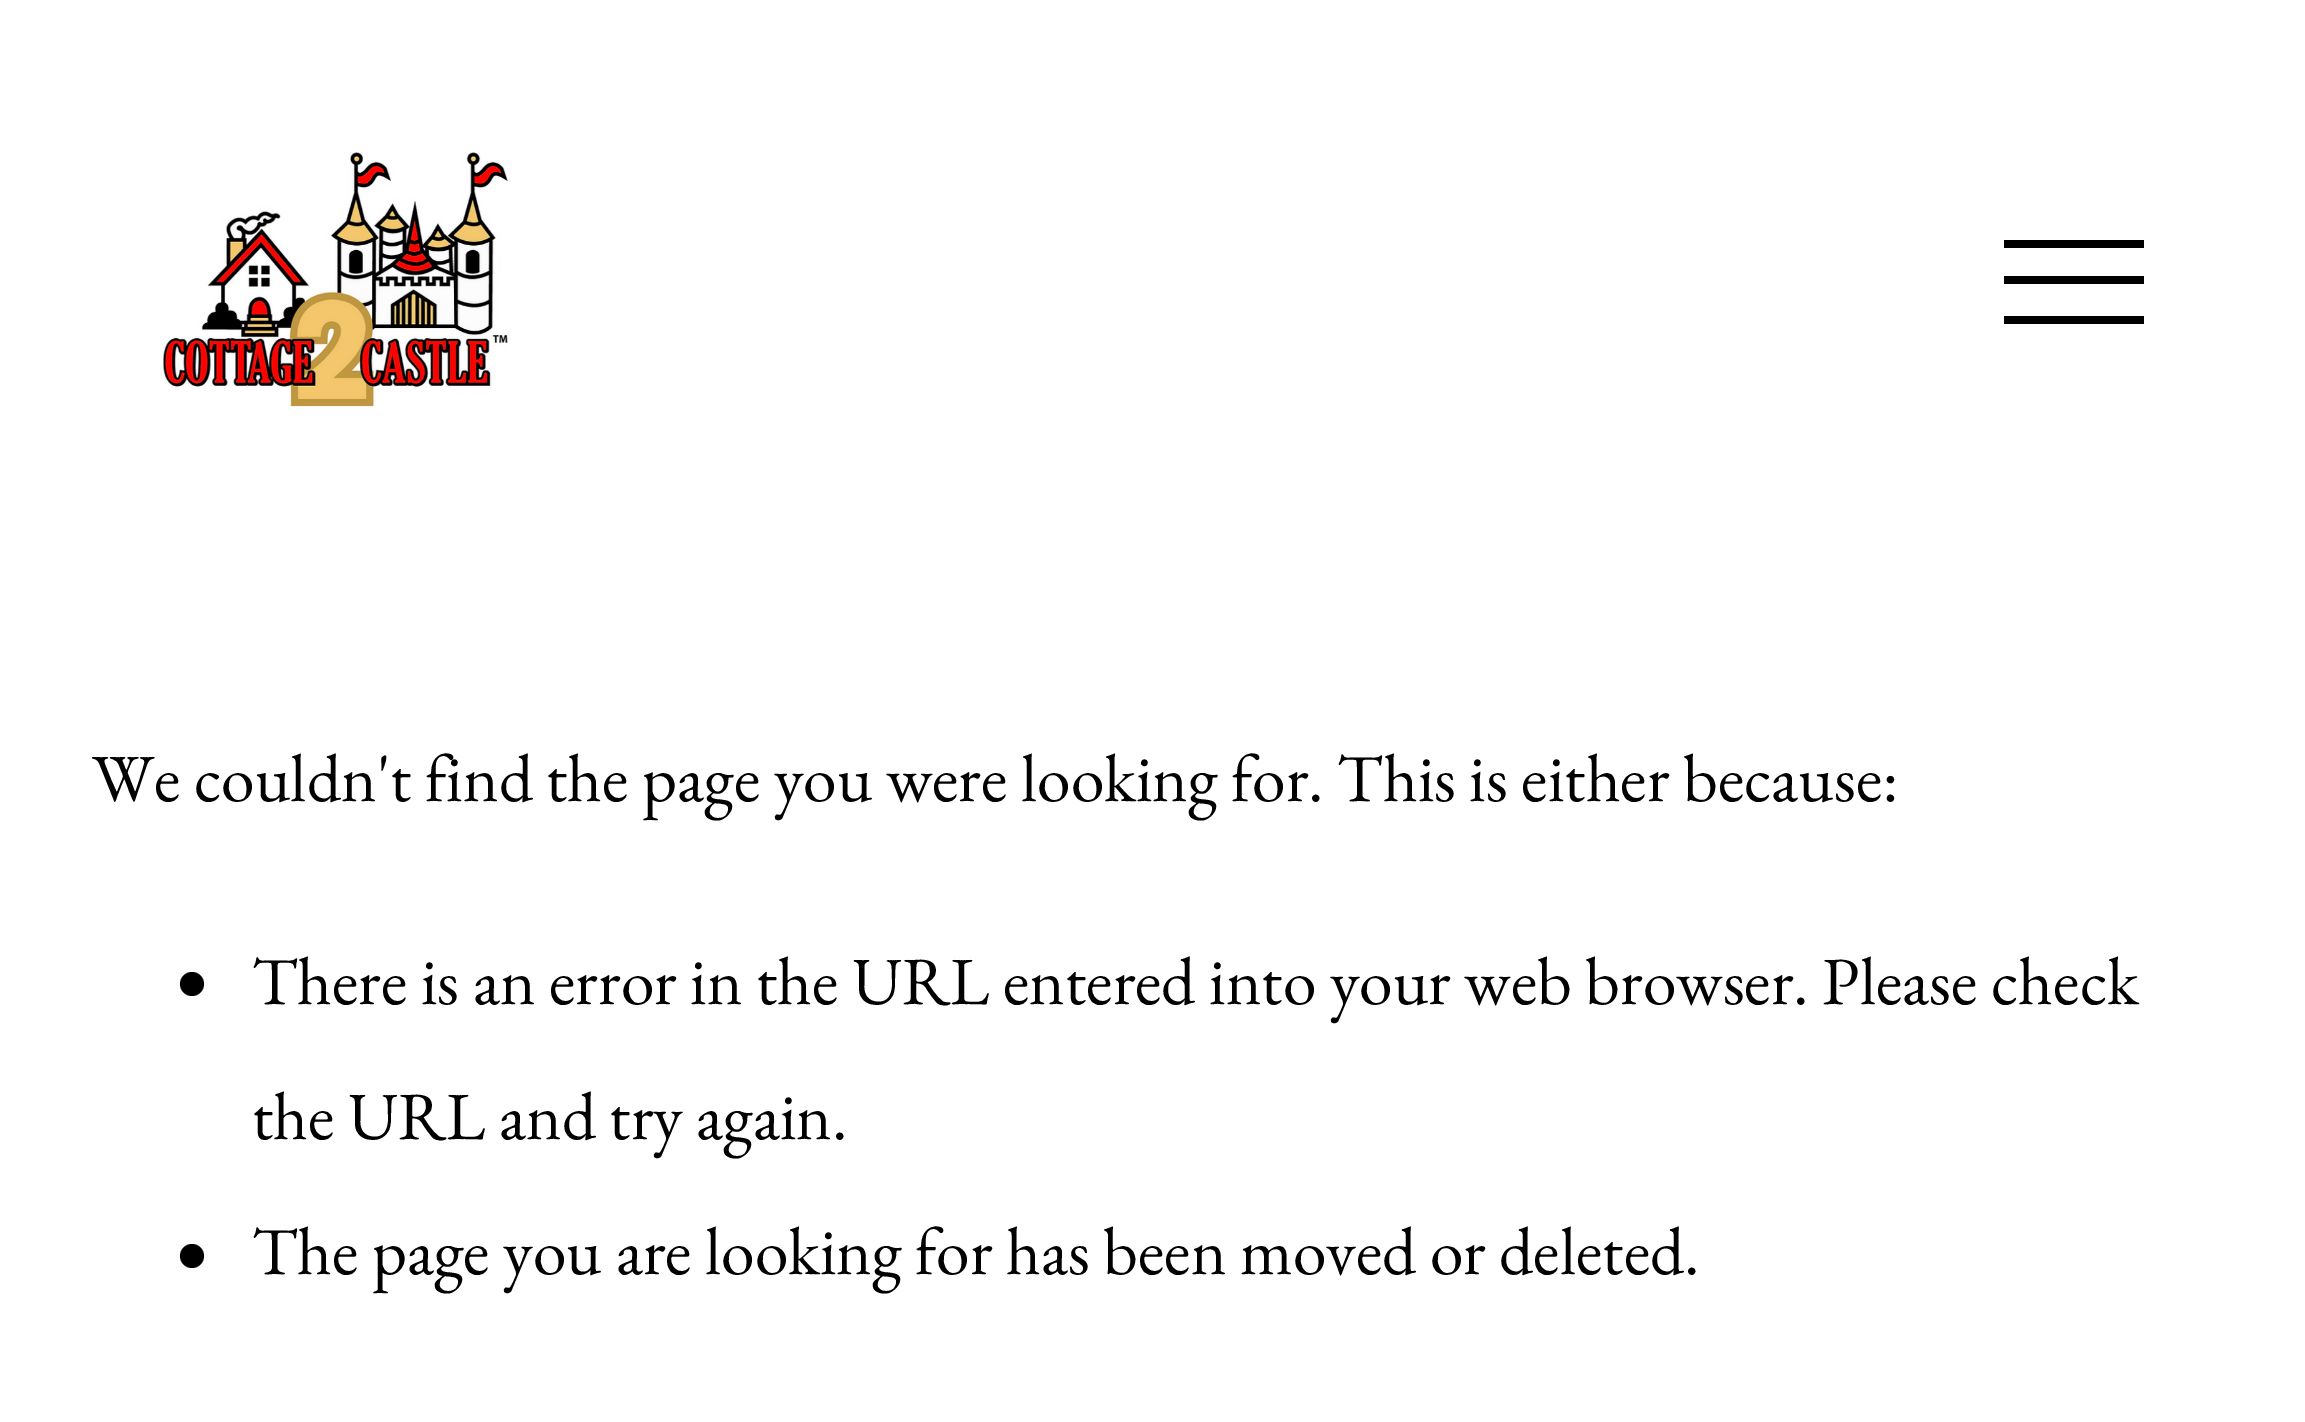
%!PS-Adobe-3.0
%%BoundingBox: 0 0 2305 1422
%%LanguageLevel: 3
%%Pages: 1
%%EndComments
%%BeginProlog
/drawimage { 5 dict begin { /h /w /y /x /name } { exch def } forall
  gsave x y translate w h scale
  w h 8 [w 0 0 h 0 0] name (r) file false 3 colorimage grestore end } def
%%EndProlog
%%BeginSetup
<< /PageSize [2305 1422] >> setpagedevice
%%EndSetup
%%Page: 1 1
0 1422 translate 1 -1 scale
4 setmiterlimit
1 setgray
0 0 2305 1422 rectfill
(images/1.raw) 163 152 346 255 drawimage
0 setgray
2004 240 140 8 rectfill
2004 276 140 8 rectfill
2004 316 140 8 rectfill
newpath 192 984 12 0 360 arc closepath fill
newpath 192 1256 12 0 360 arc closepath fill
/EBGaramond-Regular [67.6 0 0 -67.6 0 0] selectfont
92 801 moveto (We couldn't find the page you were looking for. This is either because:) show
252 1004 moveto (There is an error in the URL entered into your web browser. Please check) show
252 1139 moveto (the URL and try again.) show
252 1274 moveto (The page you are looking for has been moved or deleted.) show
showpage
%%EOF
